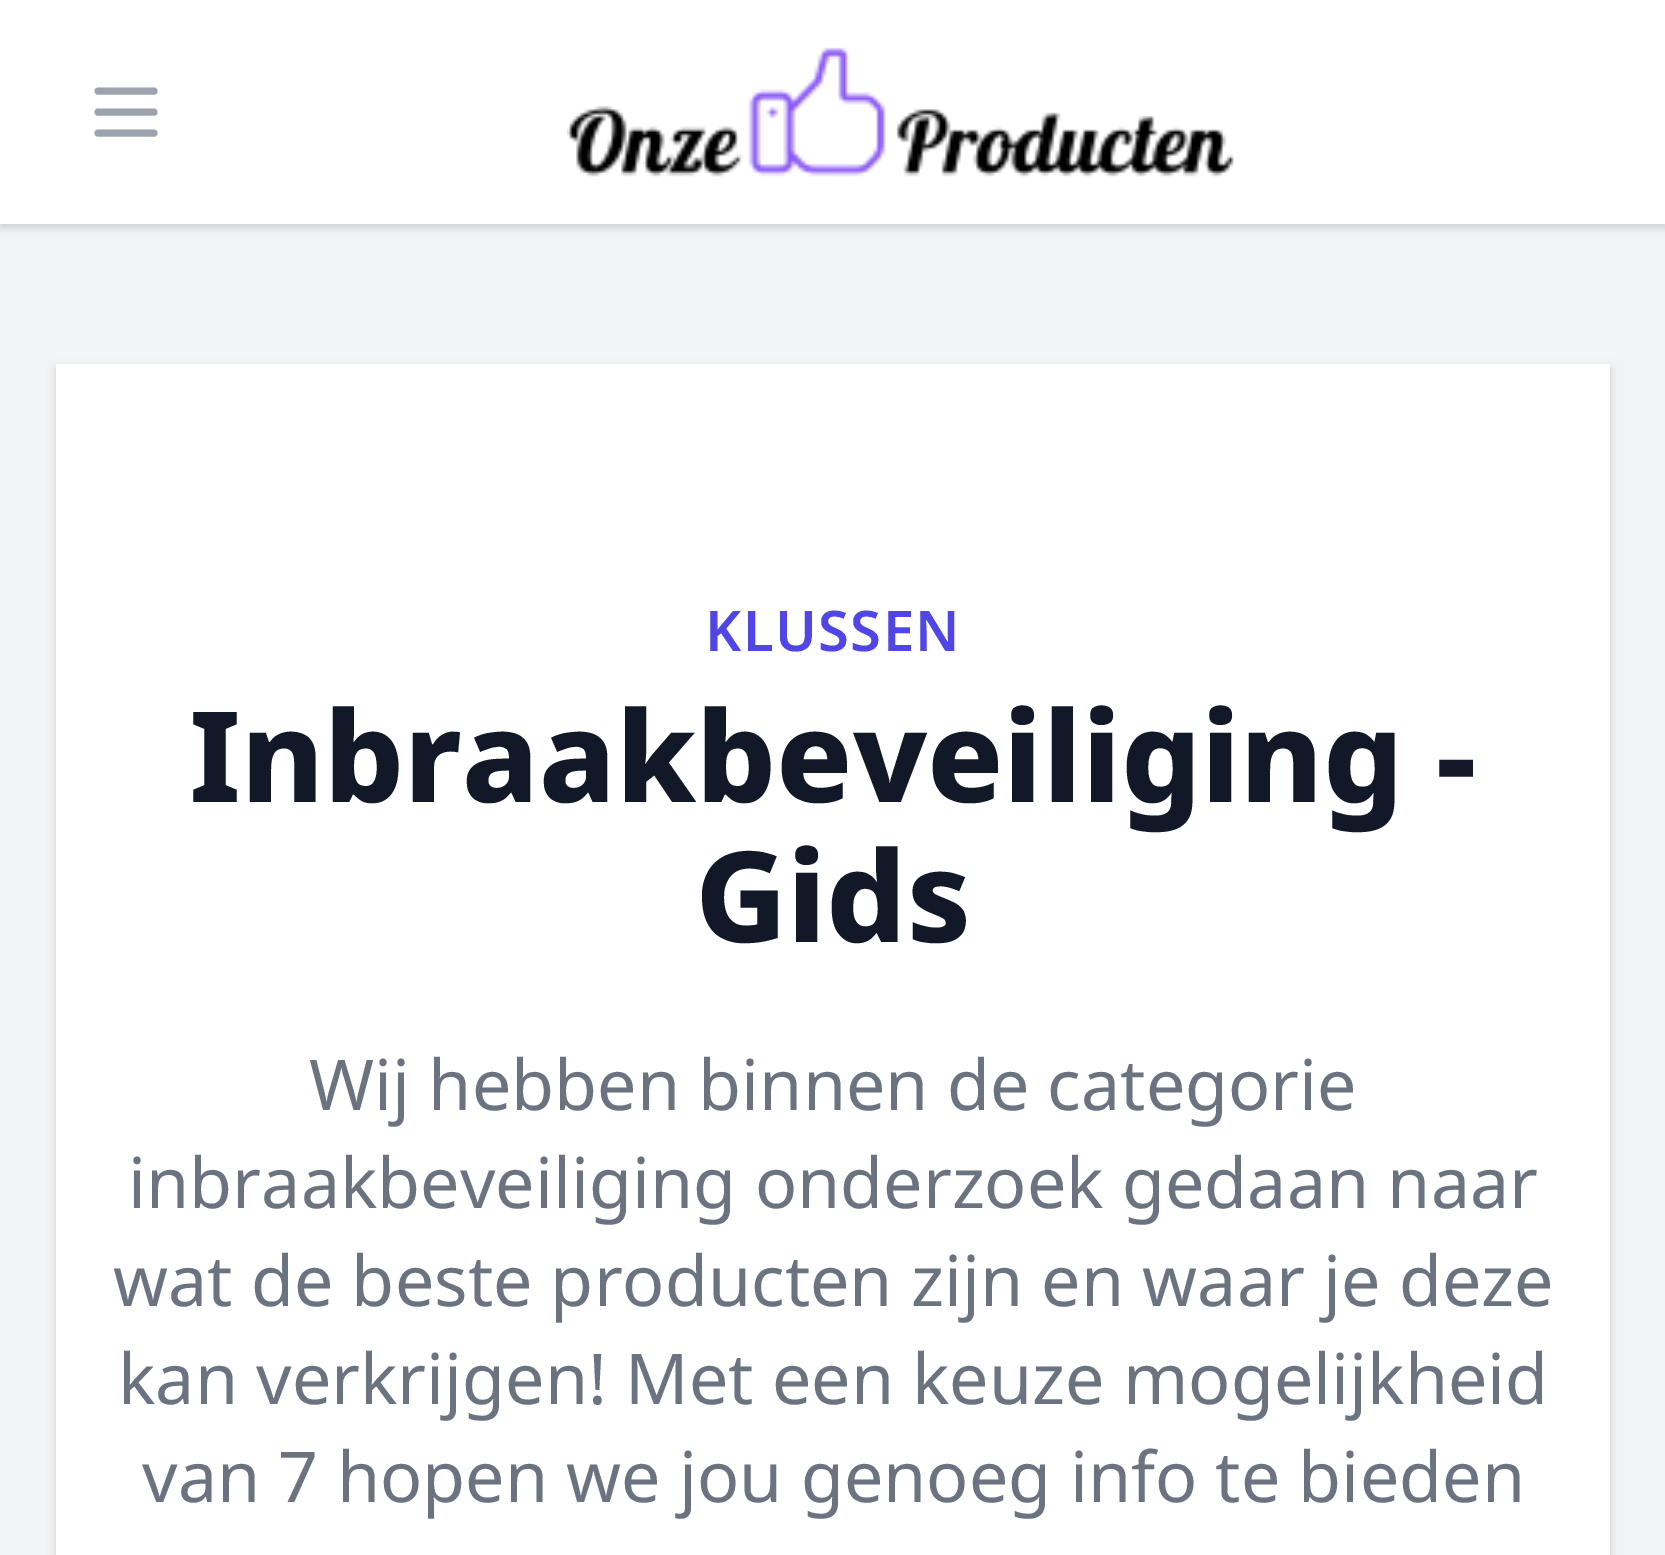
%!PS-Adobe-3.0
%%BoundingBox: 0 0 1665 1555
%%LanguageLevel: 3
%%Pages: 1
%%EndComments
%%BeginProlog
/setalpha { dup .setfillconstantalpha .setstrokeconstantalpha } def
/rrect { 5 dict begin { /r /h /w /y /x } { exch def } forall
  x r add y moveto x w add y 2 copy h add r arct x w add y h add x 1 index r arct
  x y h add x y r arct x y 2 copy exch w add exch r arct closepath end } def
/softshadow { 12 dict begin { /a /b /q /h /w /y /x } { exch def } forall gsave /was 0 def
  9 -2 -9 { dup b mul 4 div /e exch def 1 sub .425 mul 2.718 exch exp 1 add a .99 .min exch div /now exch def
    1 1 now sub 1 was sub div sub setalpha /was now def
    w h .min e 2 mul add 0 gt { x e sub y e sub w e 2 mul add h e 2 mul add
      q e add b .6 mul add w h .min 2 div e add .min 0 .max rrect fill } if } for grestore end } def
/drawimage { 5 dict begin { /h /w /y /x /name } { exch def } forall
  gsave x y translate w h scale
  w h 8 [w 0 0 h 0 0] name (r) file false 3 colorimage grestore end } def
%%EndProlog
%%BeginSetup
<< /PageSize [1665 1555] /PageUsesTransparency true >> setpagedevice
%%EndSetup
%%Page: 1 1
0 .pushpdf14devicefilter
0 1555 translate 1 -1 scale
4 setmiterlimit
0.953 0.957 0.965 setrgbcolor
0 0 1665 1555 rectfill
0 setgray
0 4 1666 224 0 3.5 0.06 softshadow
0 4 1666 224 0 5 0.1 softshadow
1 setgray
0 0 1665 224 rectfill
0.612 0.639 0.686 setrgbcolor
7 setlinewidth
1 setlinecap
1 setlinejoin
newpath 98 91 moveto 154 91 lineto 98 112 moveto 154 112 lineto 98 133 moveto 154 133 lineto stroke
(images/1.raw) 567 47 667 130 drawimage
0 setgray
56 368 1554 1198 0 3.5 0.06 softshadow
56 368 1554 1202 0 5 0.1 softshadow
1 setgray
56 364 1554 1191 rectfill
/NotoSans-SemiBold [56 0 0 -56 0 0] selectfont
0.31 0.275 0.898 setrgbcolor
705 651 moveto 1.5 0 (KLUSSEN) ashow
/NotoSans-ExtraBold [126 0 0 -126 0 0] selectfont
0.067 0.094 0.153 setrgbcolor
189 802 moveto (Inbraakbeveiliging -) show
695 942 moveto (Gids) show
/NotoSans-Regular [70 0 0 -70 0 0] selectfont
0.42 0.447 0.502 setrgbcolor
309 1110 moveto (Wij hebben binnen de categorie) show
128 1208 moveto (inbraakbeveiliging onderzoek gedaan naar) show
113 1306 moveto (wat de beste producten zijn en waar je deze) show
118 1404 moveto (kan verkrijgen! Met een keuze mogelijkheid) show
142 1502 moveto (van 7 hopen we jou genoeg info te bieden) show
.poppdf14devicefilter showpage
%%EOF
